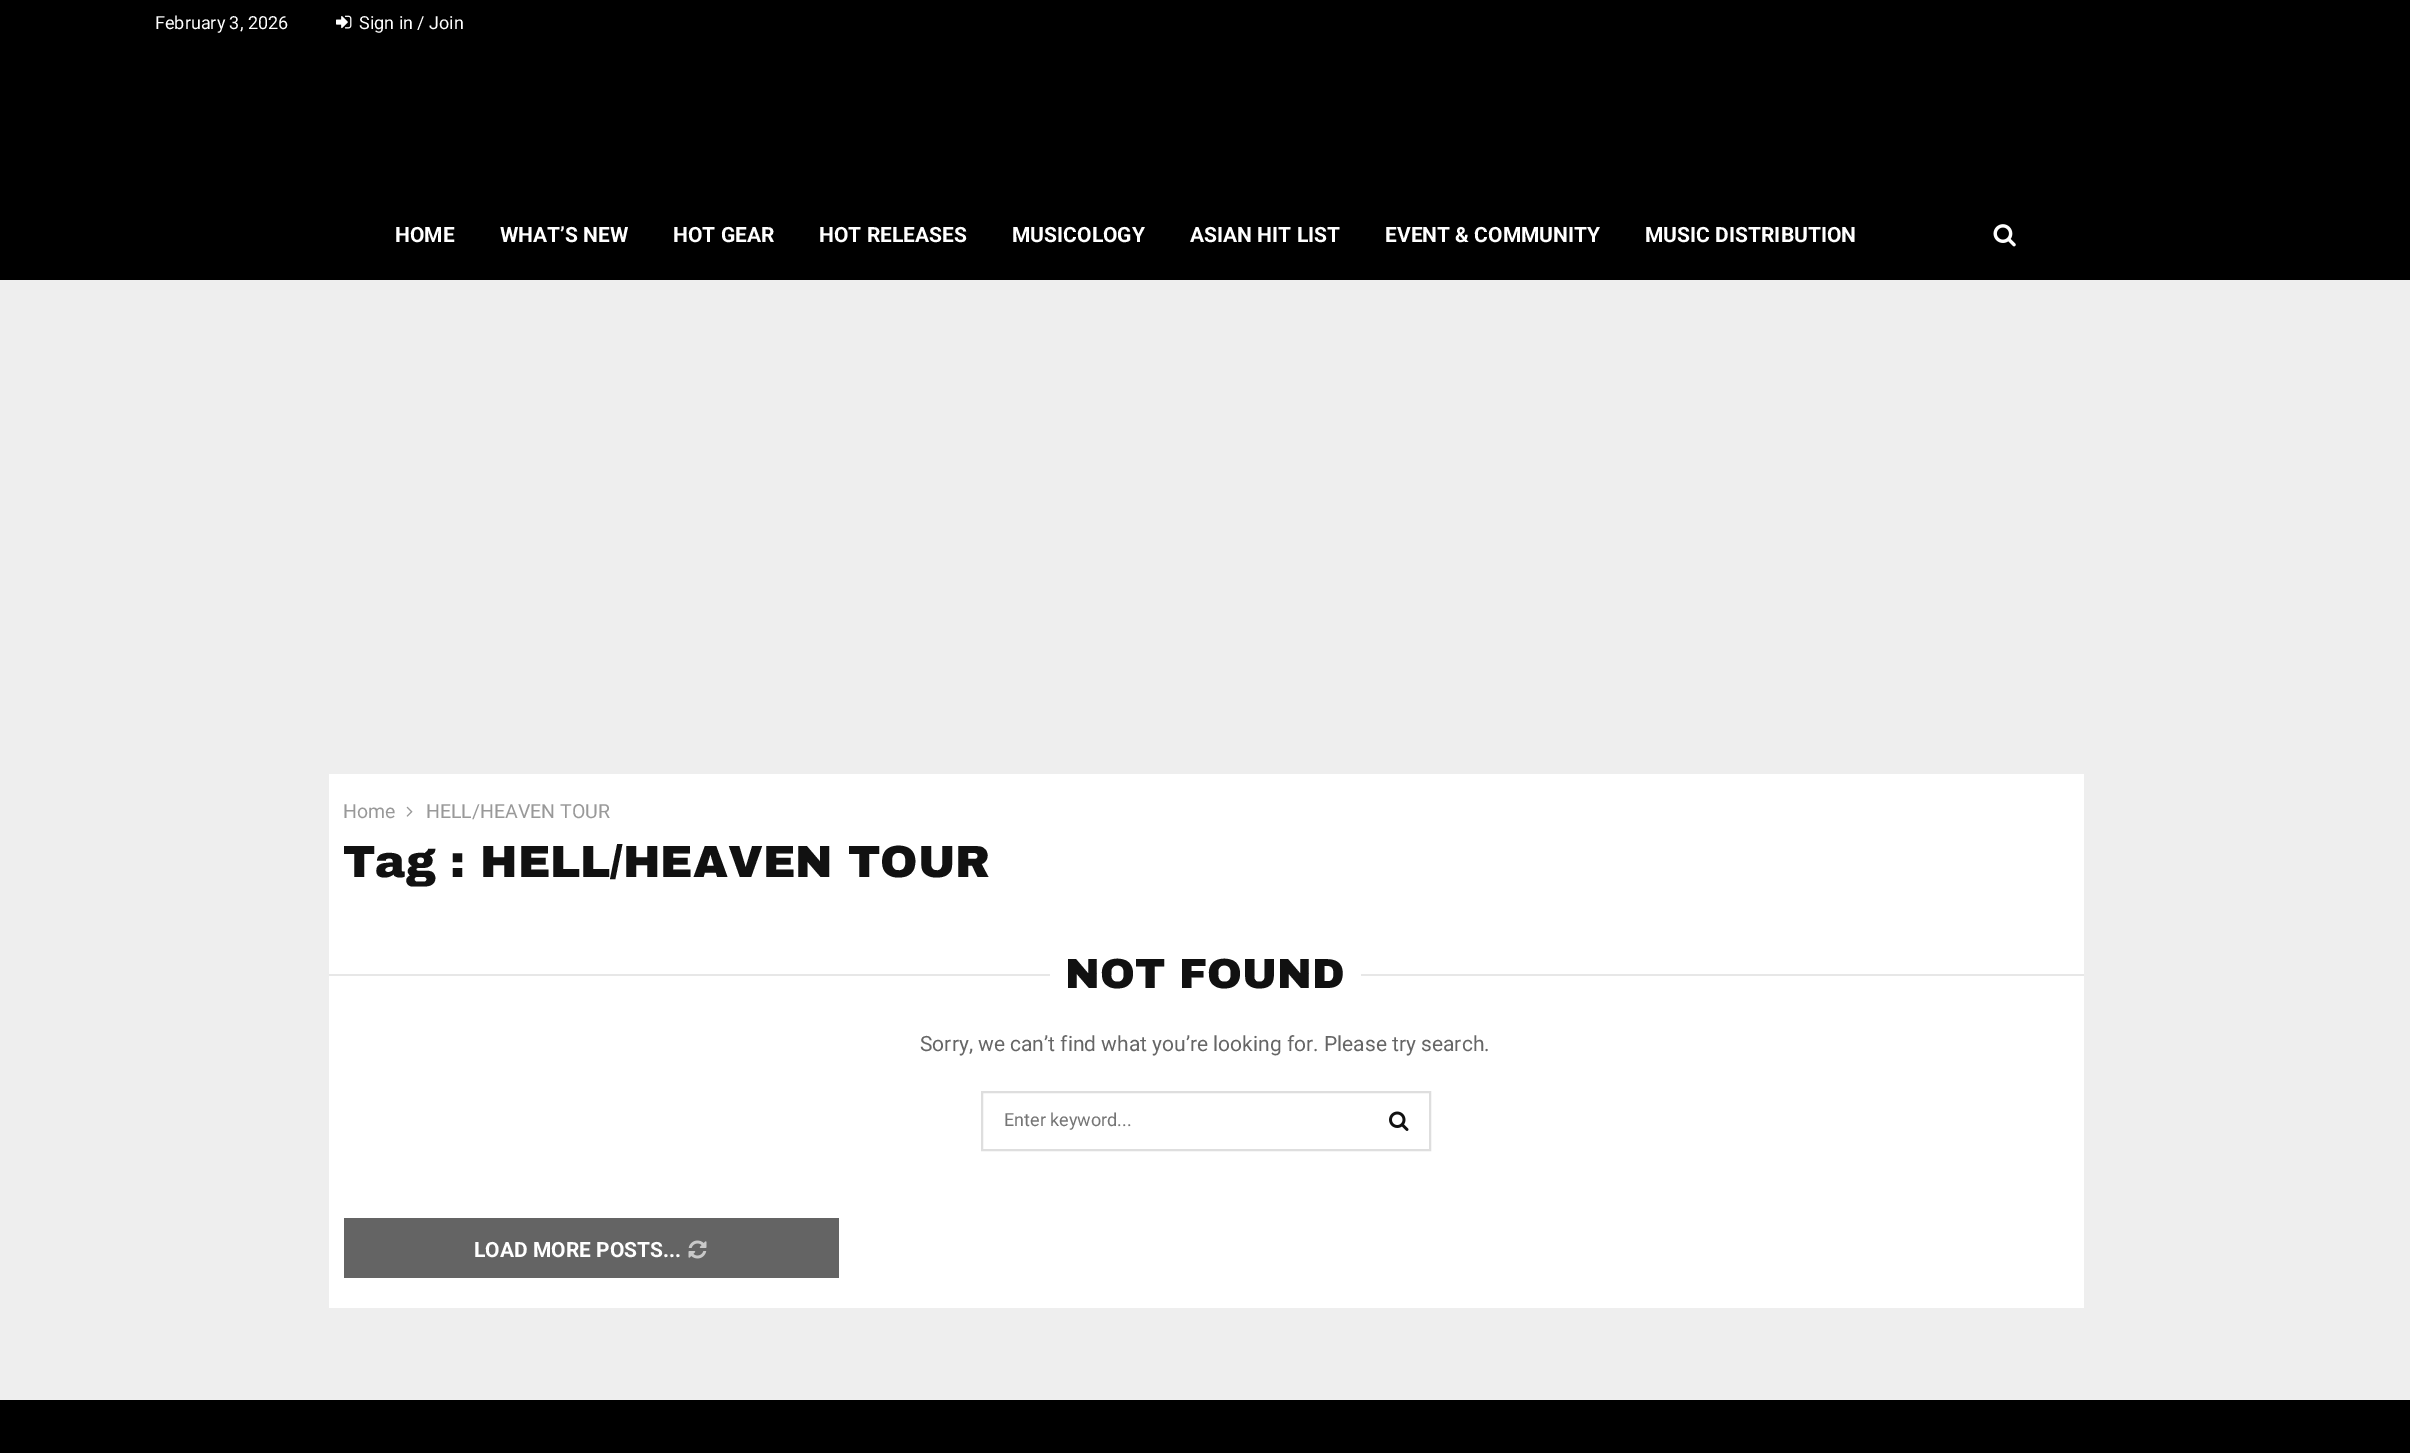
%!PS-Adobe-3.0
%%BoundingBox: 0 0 2410 1453
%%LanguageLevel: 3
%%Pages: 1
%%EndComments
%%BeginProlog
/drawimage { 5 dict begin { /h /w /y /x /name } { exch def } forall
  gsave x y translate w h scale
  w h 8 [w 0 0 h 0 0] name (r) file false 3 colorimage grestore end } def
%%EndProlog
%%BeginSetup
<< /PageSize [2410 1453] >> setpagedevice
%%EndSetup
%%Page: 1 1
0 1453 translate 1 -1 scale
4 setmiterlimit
0.933 setgray
0 0 2410 1453 rectfill
0 setgray
0 0 2410 280 rectfill
(images/1.raw) 336 15 16 14 drawimage
(images/2.raw) 1993 224 23 23 drawimage
1 setgray
329 774 1755 534 rectfill
(images/3.raw) 406 806 7 11 drawimage
0.906 setgray
329 974 721 2 rectfill
1361 974 723 2 rectfill
0.871 setgray
2 setlinewidth
982 1092 448 58 rectstroke
(images/4.raw) 1389 1111 20 20 drawimage
0.392 setgray
344 1218 495 60 rectfill
(images/5.raw) 688 1240 19 19 drawimage
0 setgray
0 1400 2410 53 rectfill
/Roboto-Regular [18 0 0 -18 0 0] selectfont
1 setgray
155 29 moveto (February 3, 2026) show
359 29 moveto (Sign in / Join) show
/Roboto-Bold [21 0 0 -21 0 0] selectfont
395 242 moveto (HOME) show
500 242 moveto (WHAT’S NEW) show
673 242 moveto (HOT GEAR) show
819 242 moveto (HOT RELEASES) show
1012 242 moveto (MUSICOLOGY) show
1190 242 moveto (ASIAN HIT LIST) show
1385 242 moveto (EVENT & COMMUNITY) show
1645 242 moveto (MUSIC DISTRIBUTION) show
/Roboto-Regular [19.5 0 0 -19.5 0 0] selectfont
0.6 setgray
343 818 moveto (Home) show
426 818 moveto (HELL/HEAVEN TOUR) show
/ArchivoBlack-Black [45 0 0 -45 0 0] selectfont
0.067 setgray
343 877 moveto (Tag : HELL/HEAVEN TOUR) show
/ArchivoBlack-Black [42 0 0 -42 0 0] selectfont
1065 988 moveto (NOT FOUND) show
/Roboto-Regular [21 0 0 -21 0 0] selectfont
0.4 setgray
920 1051 moveto (Sorry, we can’t find what you’re looking for. Please try search.) show
/Roboto-Regular [18 0 0 -18 0 0] selectfont
0.459 setgray
1004 1126 moveto (Enter keyword...) show
/Roboto-Bold [21 0 0 -21 0 0] selectfont
1 setgray
474 1257 moveto (LOAD MORE POSTS...) show
showpage
%%EOF
